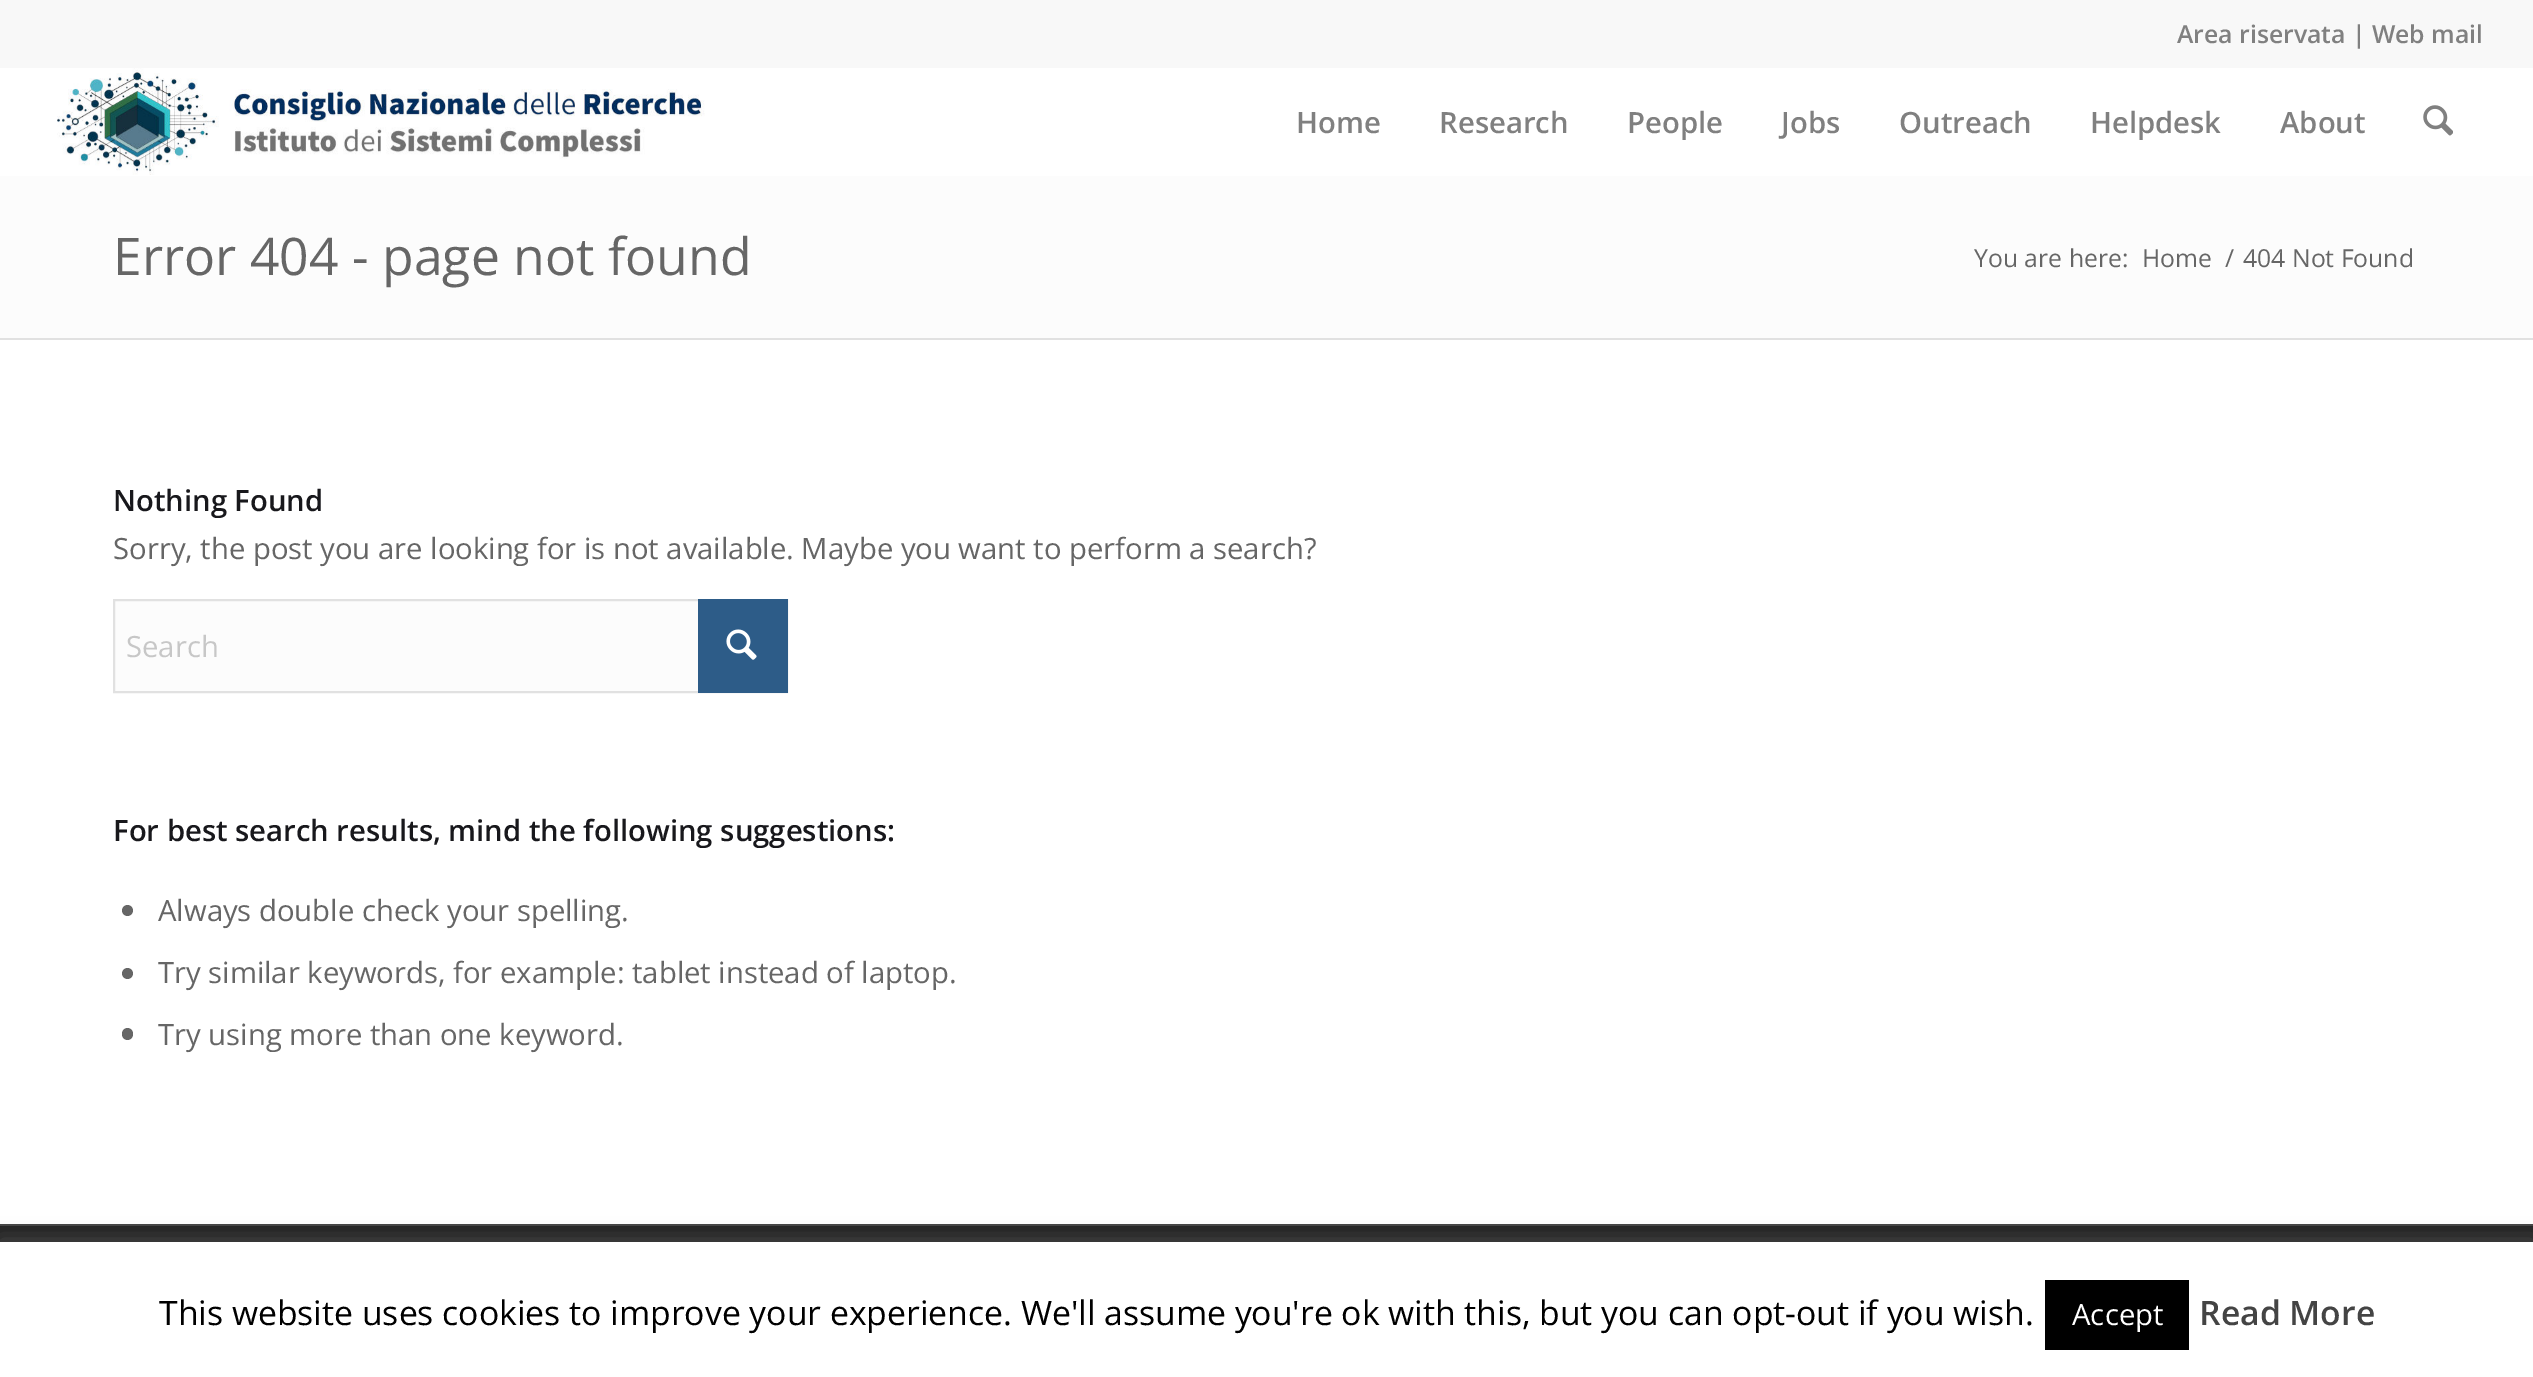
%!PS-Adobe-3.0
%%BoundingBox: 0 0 2533 1377
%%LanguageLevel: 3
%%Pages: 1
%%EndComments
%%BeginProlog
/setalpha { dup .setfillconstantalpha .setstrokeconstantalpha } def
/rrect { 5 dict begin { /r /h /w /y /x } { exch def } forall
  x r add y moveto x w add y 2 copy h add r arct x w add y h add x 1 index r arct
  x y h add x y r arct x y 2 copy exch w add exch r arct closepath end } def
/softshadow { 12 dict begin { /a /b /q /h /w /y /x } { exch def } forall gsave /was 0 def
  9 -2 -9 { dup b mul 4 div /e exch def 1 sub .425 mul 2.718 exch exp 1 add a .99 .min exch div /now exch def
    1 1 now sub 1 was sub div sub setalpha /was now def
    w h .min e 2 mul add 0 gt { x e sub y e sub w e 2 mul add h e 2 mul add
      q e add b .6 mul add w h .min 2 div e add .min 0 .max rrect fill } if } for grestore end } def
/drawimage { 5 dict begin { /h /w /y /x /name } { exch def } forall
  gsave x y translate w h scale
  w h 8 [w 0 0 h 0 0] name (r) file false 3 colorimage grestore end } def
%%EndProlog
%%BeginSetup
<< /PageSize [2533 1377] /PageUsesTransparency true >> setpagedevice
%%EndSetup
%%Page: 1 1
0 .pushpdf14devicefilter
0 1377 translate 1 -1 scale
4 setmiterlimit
1 setgray
0 0 2533 1377 rectfill
0.973 setgray
0 0 2533 68 rectfill
(images/1.raw) 57 68 648 107 drawimage
(images/2.raw) 2423 105 30 31 drawimage
0.988 setgray
0 176 2533 162 rectfill
0.882 setgray
0 338 2533 2 rectfill
0.988 setgray
115 601 583 90 rectfill
0.882 setgray
2 setlinewidth
114 600 673 92 rectstroke
0.176 0.361 0.533 setrgbcolor
698 599 90 94 rectfill
(images/3.raw) 726 629 31 31 drawimage
0.4 setgray
newpath 127.5 910.5 5.5 0 360 arc closepath fill
newpath 127.5 973.5 5.5 0 360 arc closepath fill
122 1028 11 12 5.5 rrect fill
0.133 setgray
0 1226 2533 16 rectfill
0.267 setgray
0 1224 2533 2 rectfill
0.675 0.671 0.671 setrgbcolor
0 1240 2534 135 0 11 0.3 softshadow
1 setgray
0 1242 2533 135 rectfill
0 setgray
2045 1280 144 70 rectfill
/OpenSans-SemiBold [24.75 0 0 -24.75 0 0] selectfont
0.502 setgray
2177 43 moveto (Area riservata | Web mail) show
/OpenSans-SemiBold [29.25 0 0 -29.25 0 0] selectfont
1296 133 moveto (Home) show
1439 133 moveto (Research) show
1627 133 moveto (People) show
1781 133 moveto (Jobs) show
1899 133 moveto (Outreach) show
2090 133 moveto (Helpdesk) show
2280 133 moveto (About) show
/OpenSans-Regular [51.75 0 0 -51.75 0 0] selectfont
0.4 setgray
113 275 moveto (Error 404 - page not found) show
/OpenSans-Regular [24.75 0 0 -24.75 0 0] selectfont
1974 267 moveto (You are here:) show
2142 267 moveto (Home) show
2225 267 moveto (/) show
2243 267 moveto (404 Not Found) show
/OpenSans-SemiBold [29.25 0 0 -29.25 0 0] selectfont
0.094 0.094 0.11 setrgbcolor
113 511 moveto (Nothing Found) show
/OpenSans-Regular [29.25 0 0 -29.25 0 0] selectfont
0.4 setgray
113 559 moveto (Sorry, the post you are looking for is not available. Maybe you want to perform a search?) show
0.78 setgray
126 657 moveto (Search) show
/OpenSans-SemiBold [29.25 0 0 -29.25 0 0] selectfont
0.094 0.094 0.11 setrgbcolor
113 841 moveto (For best search results, mind the following suggestions:) show
/OpenSans-Regular [29.25 0 0 -29.25 0 0] selectfont
0.4 setgray
158 921 moveto (Always double check your spelling.) show
158 983 moveto (Try similar keywords, for example: tablet instead of laptop.) show
158 1045 moveto (Try using more than one keyword.) show
/OpenSans-Regular [33.75 0 0 -33.75 0 0] selectfont
0 setgray
159 1325 moveto (This website uses cookies to improve your experience. We'll assume you're ok with this, but you can opt-out if you wish.) show
/OpenSans-Regular [29.25 0 0 -29.25 0 0] selectfont
1 setgray
2072 1325 moveto (Accept) show
/OpenSans-SemiBold [33.75 0 0 -33.75 0 0] selectfont
0.267 setgray
2199 1325 moveto (Read More) show
.poppdf14devicefilter showpage
%%EOF
